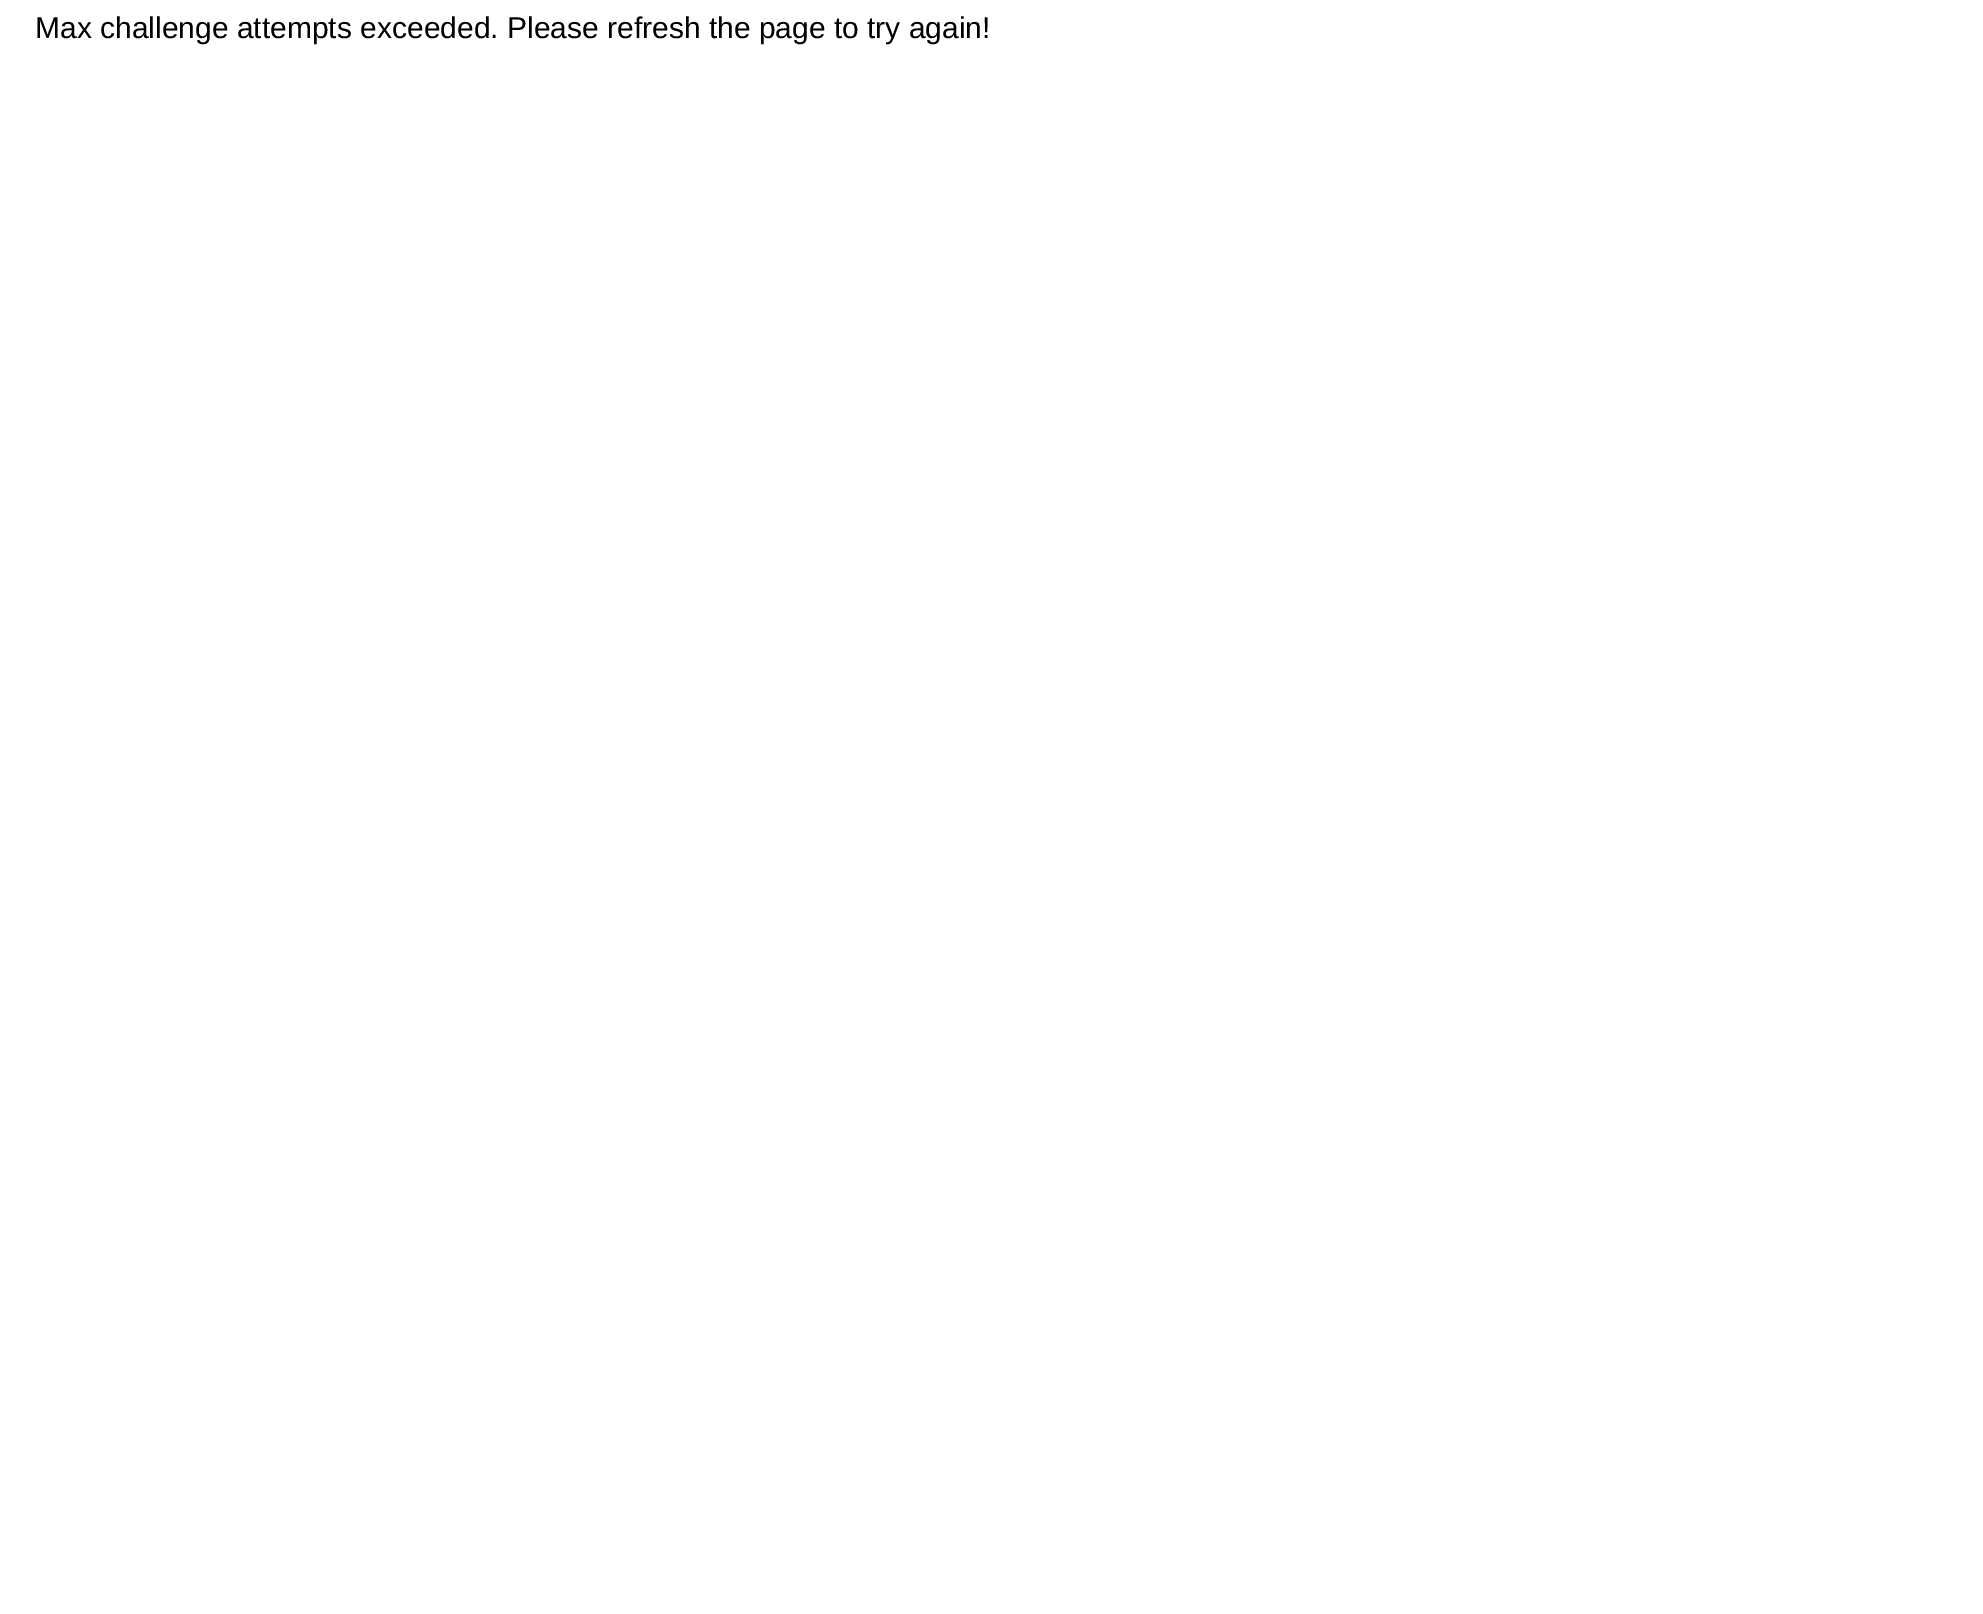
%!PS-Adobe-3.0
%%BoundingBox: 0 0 1983 1614
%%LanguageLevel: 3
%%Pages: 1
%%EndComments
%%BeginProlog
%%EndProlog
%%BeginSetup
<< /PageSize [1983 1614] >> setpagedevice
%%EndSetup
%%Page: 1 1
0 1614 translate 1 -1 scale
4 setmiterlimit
1 setgray
0 0 1983 1614 rectfill
/LiberationSans-Regular [30 0 0 -30 0 0] selectfont
0 setgray
35 38 moveto (Max challenge attempts exceeded. Please refresh the page to try again!) show
showpage
%%EOF
